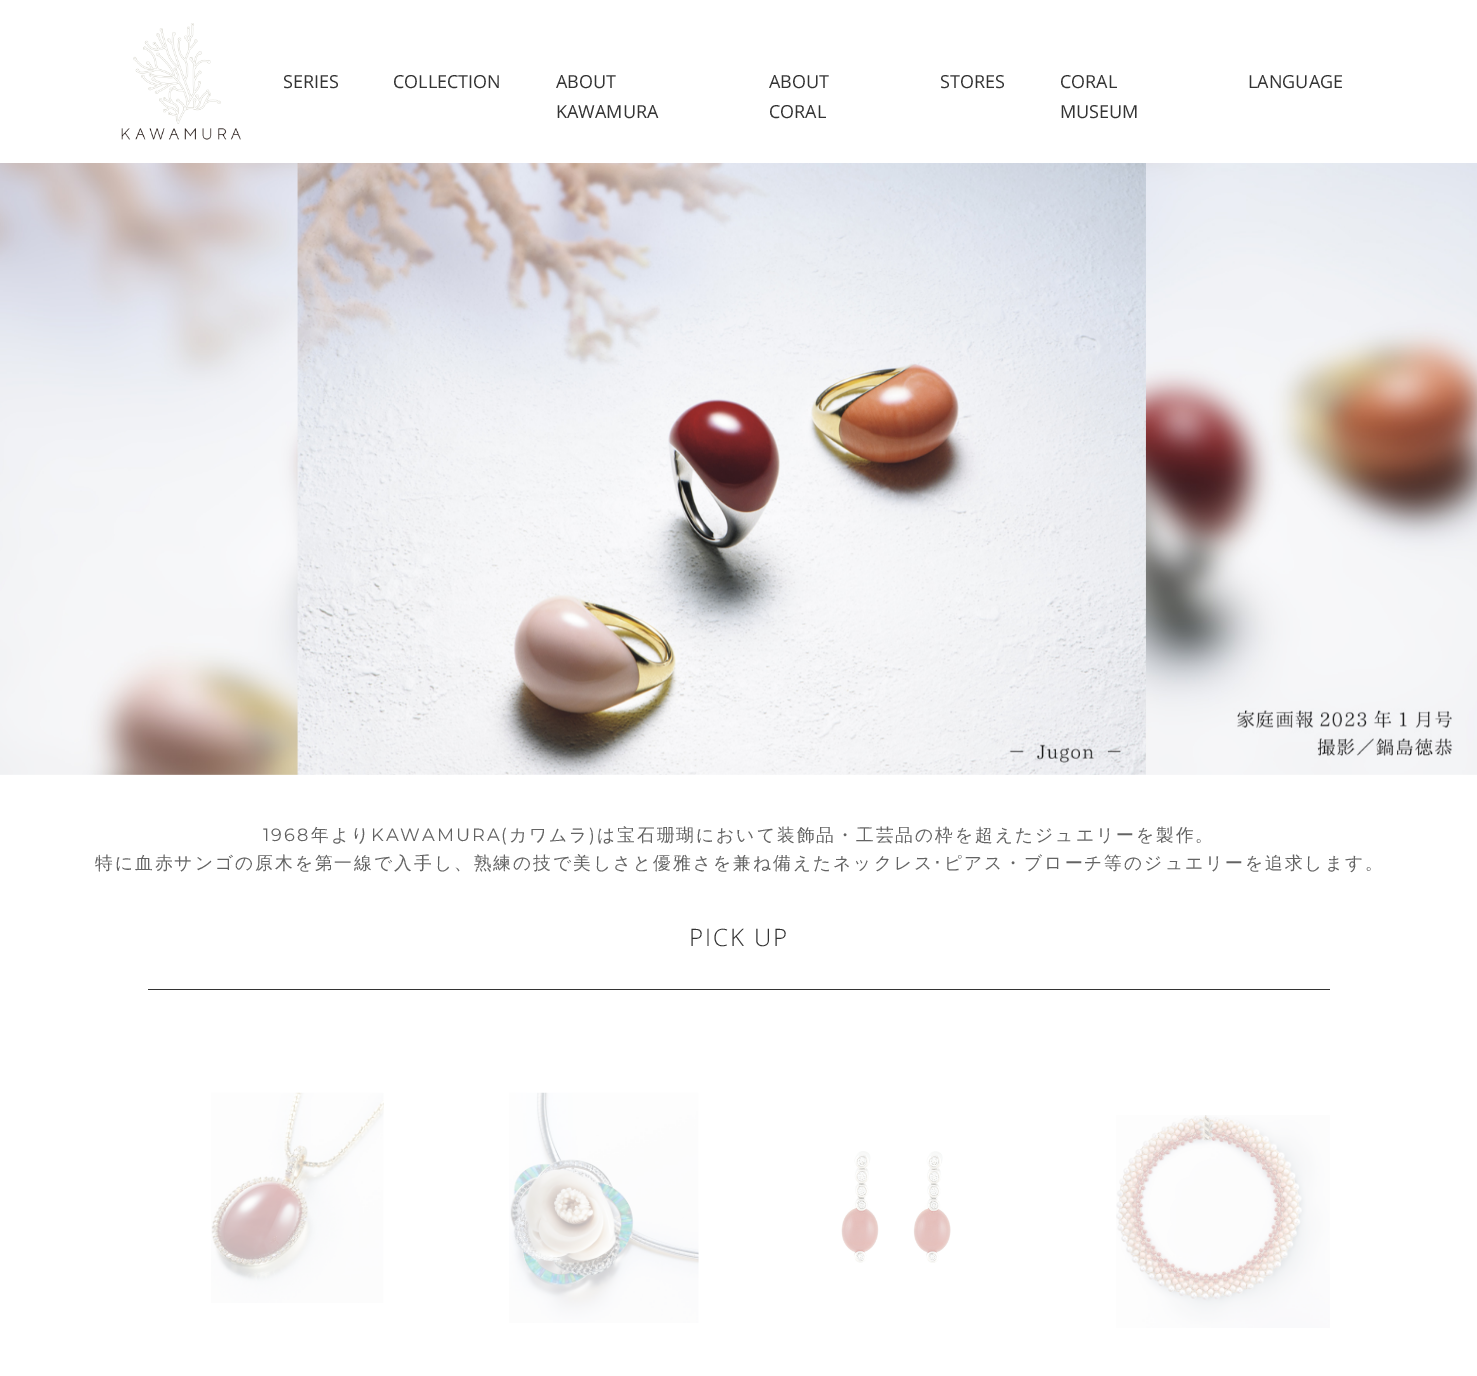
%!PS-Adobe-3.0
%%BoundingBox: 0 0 1477 1376
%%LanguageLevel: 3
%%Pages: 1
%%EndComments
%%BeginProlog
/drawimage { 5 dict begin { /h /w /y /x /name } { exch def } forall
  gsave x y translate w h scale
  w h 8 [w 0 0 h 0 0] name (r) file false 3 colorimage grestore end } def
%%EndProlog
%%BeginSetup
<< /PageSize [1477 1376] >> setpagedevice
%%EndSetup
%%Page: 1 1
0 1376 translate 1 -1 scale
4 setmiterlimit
1 setgray
0 0 1477 1376 rectfill
(images/1.raw) 121 23 120 117 drawimage
(images/2.raw) 0 163 1477 612 drawimage
0.2 setgray
148 989 1182 1 rectfill
(images/3.raw) 211 1092 173 211 drawimage
(images/4.raw) 509 1092 190 231 drawimage
(images/5.raw) 841 1151 110 112 drawimage
(images/6.raw) 1116 1115 214 213 drawimage
/OpenSans-Regular [18 0 0 -18 0 0] selectfont
283 88 moveto (SERIES) show
393 88 moveto (COLLECTION) show
556 88 moveto (ABOUT) show
556 118 moveto (KAWAMURA) show
769 88 moveto (ABOUT) show
769 118 moveto (CORAL) show
940 88 moveto (STORES) show
1060 88 moveto (CORAL) show
1060 118 moveto (MUSEUM) show
1248 88 moveto (LANGUAGE) show
/Montserrat-Regular [17.75 0 0 -17.75 0 0] selectfont
0.388 setgray
263 841 moveto 2 0 (1968) ashow
/WenQuanYiZenHei-Medium [17.75 0 0 -17.75 0 0] selectfont
311 841 moveto 2 0 (年より) ashow
/Montserrat-Regular [17.75 0 0 -17.75 0 0] selectfont
371 841 moveto 2 0 (KAWAMURA\() ashow
/WenQuanYiZenHei-Medium [17.75 0 0 -17.75 0 0] selectfont
509 841 moveto 2 0 (カワムラ) ashow
/Montserrat-Regular [17.75 0 0 -17.75 0 0] selectfont
589 841 moveto 2 0 (\)) ashow
/WenQuanYiZenHei-Medium [17.75 0 0 -17.75 0 0] selectfont
597 841 moveto 2 0 (は宝石珊瑚において装飾品・工芸品の枠を超えたジュエリーを製作。) ashow
95 869 moveto 2 0 (特に血赤サンゴの原木を第一線で入手し、熟練の技で美しさと優雅さを兼ね備えたネックレス) ashow
/IPAPGothic-Regular [17.75 0 0 -17.75 0 0] selectfont
933 869 moveto 2 0 (･) ashow
/WenQuanYiZenHei-Medium [17.75 0 0 -17.75 0 0] selectfont
944 869 moveto 2 0 (ピアス・ブローチ等のジュエリーを追求します。) ashow
/OpenSans-Light [24 0 0 -24 0 0] selectfont
0.2 setgray
689 946 moveto 2 0 (PICK UP) ashow
showpage
%%EOF
